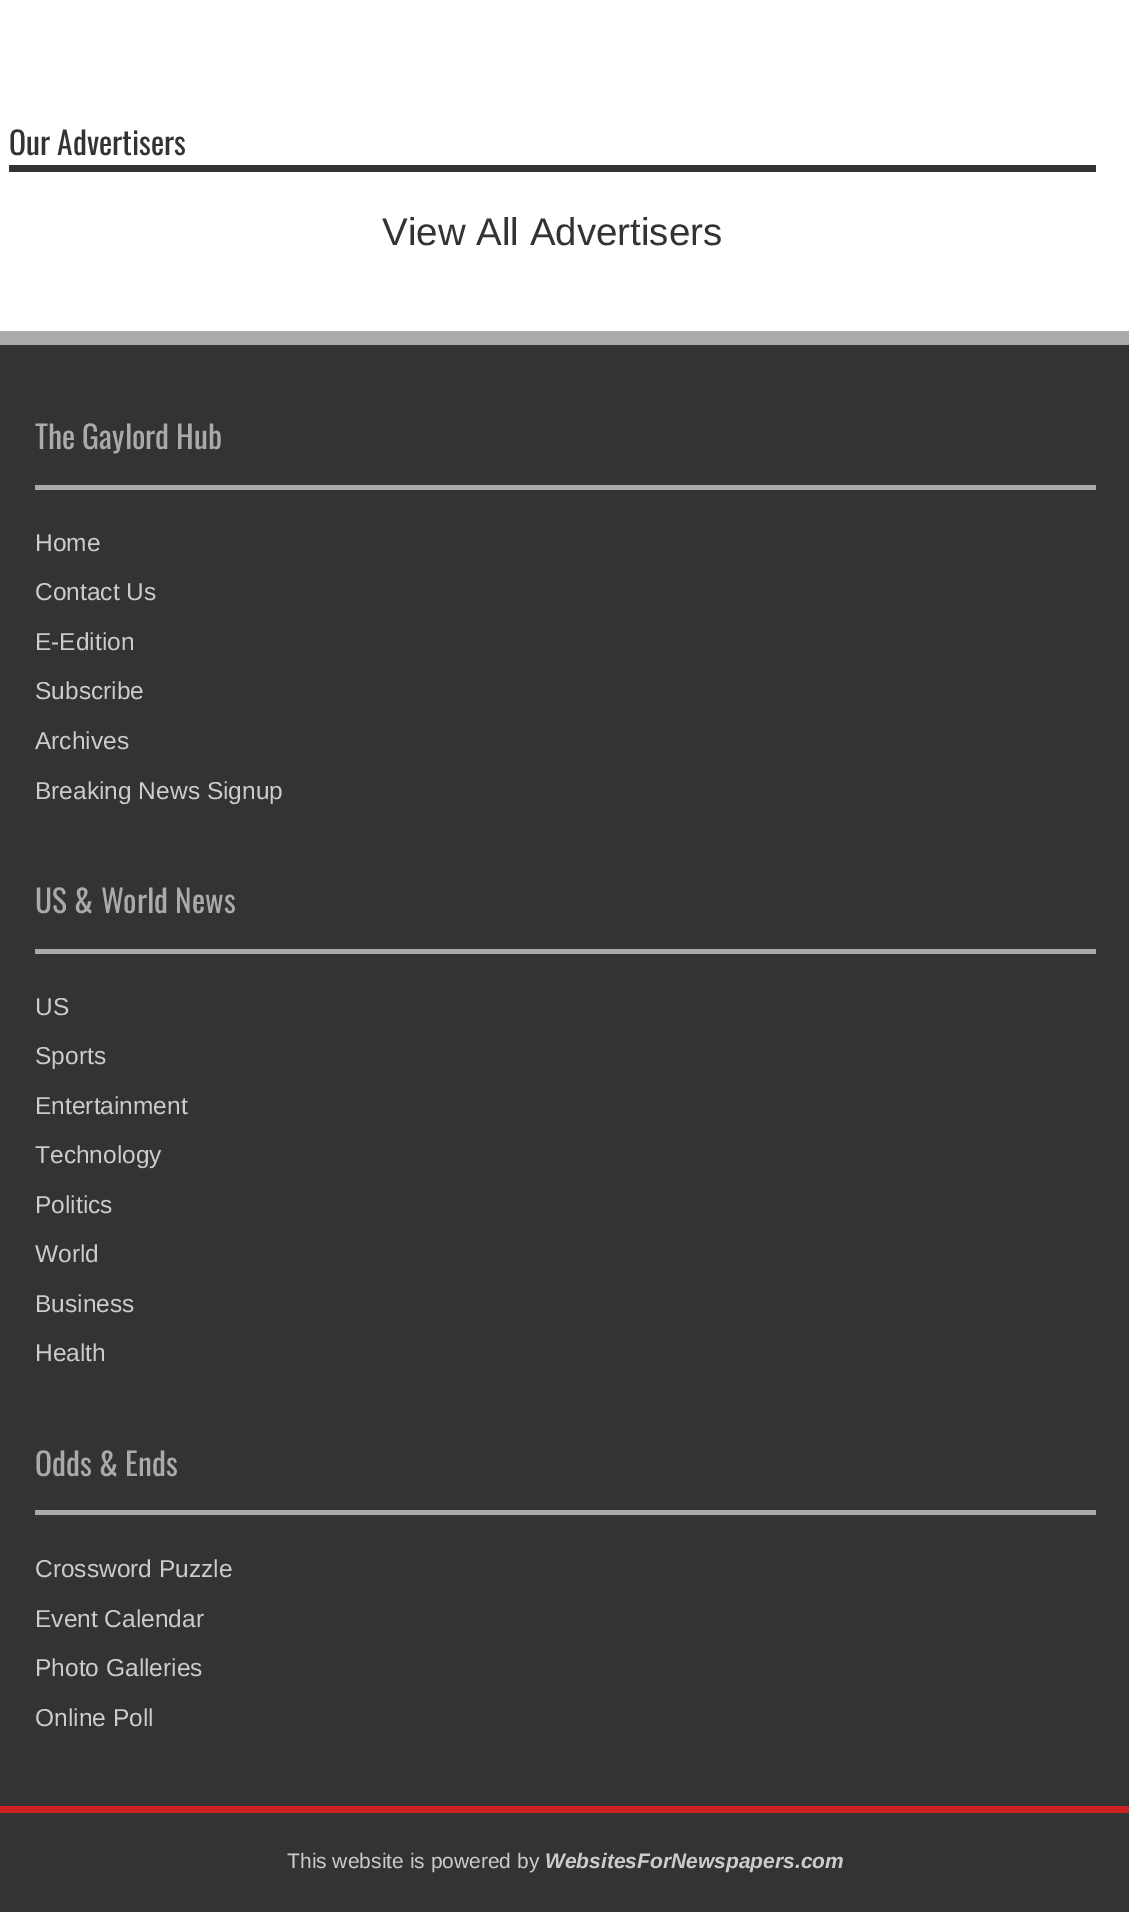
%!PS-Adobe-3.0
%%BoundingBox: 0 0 1129 1912
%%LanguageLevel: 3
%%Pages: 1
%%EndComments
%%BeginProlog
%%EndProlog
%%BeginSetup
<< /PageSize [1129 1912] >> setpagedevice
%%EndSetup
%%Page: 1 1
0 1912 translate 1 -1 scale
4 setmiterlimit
0.2 setgray
0 0 1129 1912 rectfill
1 setgray
0 0 1129 331 rectfill
0.2 setgray
9 165 1087 7 rectfill
0.667 setgray
0 331 1129 14 rectfill
35 485 1061 5 rectfill
35 949 1061 5 rectfill
35 1510 1061 5 rectfill
0.804 0.129 0.133 setrgbcolor
0 1806 1129 7 rectfill
/Oswald-Regular [31.5 0 0 -31.5 0 0] selectfont
0.2 setgray
9 155 moveto (Our Advertisers) show
/LiberationSans-Regular [38.5 0 0 -38.5 0 0] selectfont
382 245 moveto (View All Advertisers) show
/Oswald-Regular [31.5 0 0 -31.5 0 0] selectfont
0.667 setgray
35 449 moveto (The Gaylord Hub) show
/LiberationSans-Regular [24.5 0 0 -24.5 0 0] selectfont
0.8 setgray
35 551 moveto (Home) show
35 600 moveto (Contact Us) show
35 650 moveto (E-Edition) show
35 699 moveto (Subscribe) show
35 749 moveto (Archives) show
35 799 moveto (Breaking News Signup) show
/Oswald-Regular [31.5 0 0 -31.5 0 0] selectfont
0.667 setgray
35 913 moveto (US & World News) show
/LiberationSans-Regular [24.5 0 0 -24.5 0 0] selectfont
0.8 setgray
35 1015 moveto (US) show
35 1064 moveto (Sports) show
35 1114 moveto (Entertainment) show
35 1163 moveto (Technology) show
35 1213 moveto (Politics) show
35 1262 moveto (World) show
35 1312 moveto (Business) show
35 1361 moveto (Health) show
/Oswald-Regular [31.5 0 0 -31.5 0 0] selectfont
0.667 setgray
35 1476 moveto (Odds & Ends) show
/LiberationSans-Regular [24.5 0 0 -24.5 0 0] selectfont
0.8 setgray
35 1577 moveto (Crossword Puzzle) show
35 1627 moveto (Event Calendar) show
35 1676 moveto (Photo Galleries) show
35 1726 moveto (Online Poll) show
/LiberationSans-Regular [21 0 0 -21 0 0] selectfont
287 1868 moveto (This website is powered by) show
/LiberationSans-BoldItalic [21 0 0 -21 0 0] selectfont
545 1868 moveto (WebsitesForNewspapers.com) show
showpage
%%EOF
